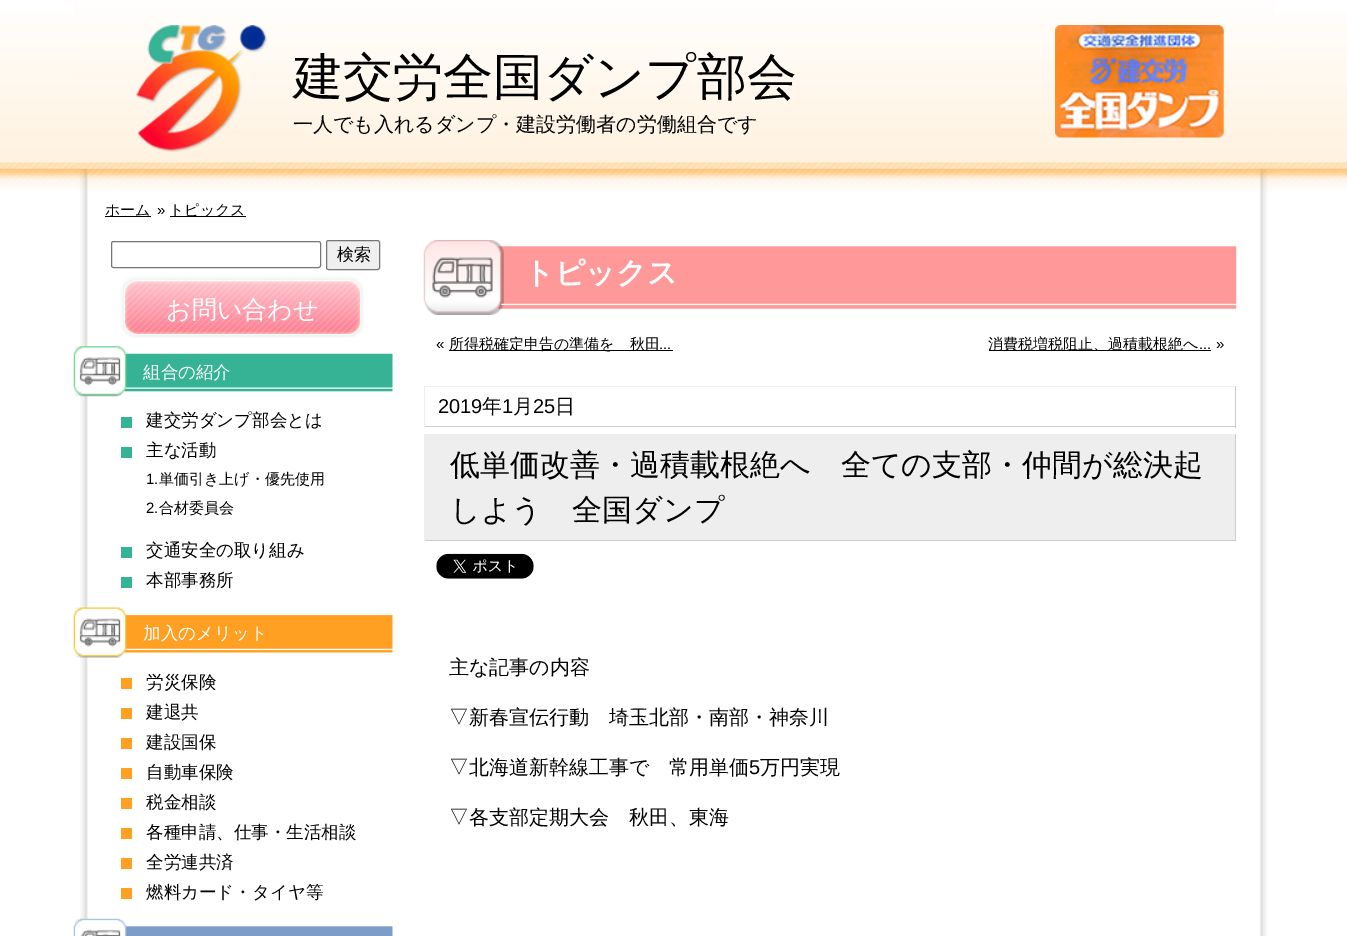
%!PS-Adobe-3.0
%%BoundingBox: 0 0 1347 936
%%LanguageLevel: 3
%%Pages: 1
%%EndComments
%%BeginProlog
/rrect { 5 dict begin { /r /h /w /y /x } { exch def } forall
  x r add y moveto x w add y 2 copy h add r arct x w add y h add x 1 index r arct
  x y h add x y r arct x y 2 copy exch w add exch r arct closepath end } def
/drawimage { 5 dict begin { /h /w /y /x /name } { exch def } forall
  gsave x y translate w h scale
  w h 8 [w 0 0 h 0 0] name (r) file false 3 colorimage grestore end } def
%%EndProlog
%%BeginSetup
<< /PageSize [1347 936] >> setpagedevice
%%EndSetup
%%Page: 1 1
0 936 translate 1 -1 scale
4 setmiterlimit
1 setgray
0 0 1347 936 rectfill
(images/1.raw) 0 12 1347 178 drawimage
(images/2.raw) 80 192 1187 744 drawimage
(images/3.raw) 73 0 1201 192 drawimage
(images/4.raw) 136 25 132 127 drawimage
(images/5.raw) 1055 25 169 113 drawimage
0 setgray
105 216 46 1 rectfill
170 216 76 1 rectfill
0.463 setgray
111.5 241.5 209 26 2 rrect stroke
0.937 setgray
326.5 240.5 53 29 2 rrect gsave fill grestore
0.463 setgray
stroke
(images/6.raw) 120 276 244 62 drawimage
(images/7.raw) 73 346 320 51 drawimage
0.212 0.702 0.584 setrgbcolor
121 417 11 11 rectfill
121 447 11 11 rectfill
121 547 11 11 rectfill
121 577 11 11 rectfill
(images/8.raw) 73 607 320 51 drawimage
1 0.627 0.133 setrgbcolor
121 678 11 11 rectfill
121 708 11 11 rectfill
121 738 11 11 rectfill
121 768 11 11 rectfill
121 798 11 11 rectfill
121 828 11 11 rectfill
121 858 11 11 rectfill
121 888 11 11 rectfill
(images/9.raw) 73 918 320 18 drawimage
(images/10.raw) 423 240 814 75 drawimage
0 setgray
449 350 224 1 rectfill
989 350 222 1 rectfill
0.933 setgray
424 386 812 1 rectfill
0.8 setgray
1235 386 1 42 rectfill
424 426 812 1 rectfill
0.933 setgray
424 386 1 42 rectfill
425 434 810 106 rectfill
0.8 setgray
1235 434 1 107 rectfill
424 540 812 1 rectfill
0.933 setgray
424 434 1 107 rectfill
(images/11.raw) 436 553 98 26 drawimage
/WenQuanYiZenHei-Medium [50 0 0 -50 0 0] selectfont
0 setgray
293 94 moveto (建交労全国ダンプ部会) show
/WenQuanYiZenHei-Medium [20 0 0 -20 0 0] selectfont
293 131 moveto (一人でも入れるダンプ・建設労働者の労働組合です) show
/WenQuanYiZenHei-Medium [15 0 0 -15 0 0] selectfont
105 215 moveto (ホーム) show
/LiberationSans-Regular [15 0 0 -15 0 0] selectfont
157 215 moveto (») show
/WenQuanYiZenHei-Medium [15 0 0 -15 0 0] selectfont
169 215 moveto (トピックス) show
/WenQuanYiZenHei-Medium [17 0 0 -17 0 0] selectfont
337 260 moveto (検索) show
/WenQuanYiZenHei-Medium [25 0 0 -25 0 0] selectfont
1 setgray
166 318 moveto (お問い合わせ) show
/WenQuanYiZenHei-Medium [17.5 0 0 -17.5 0 0] selectfont
143 378 moveto (組合の紹介) show
0 setgray
146 426 moveto (建交労ダンプ部会とは) show
146 456 moveto (主な活動) show
/LiberationSans-Regular [15 0 0 -15 0 0] selectfont
146 484 moveto (1.) show
/WenQuanYiZenHei-Medium [15 0 0 -15 0 0] selectfont
159 484 moveto (単価引き上げ・優先使用) show
/LiberationSans-Regular [15 0 0 -15 0 0] selectfont
146 513 moveto (2.) show
/WenQuanYiZenHei-Medium [15 0 0 -15 0 0] selectfont
159 513 moveto (合材委員会) show
/WenQuanYiZenHei-Medium [17.5 0 0 -17.5 0 0] selectfont
146 556 moveto (交通安全の取り組み) show
146 586 moveto (本部事務所) show
1 setgray
143 639 moveto (加入のメリット) show
0 setgray
146 688 moveto (労災保険) show
146 718 moveto (建退共) show
146 748 moveto (建設国保) show
146 778 moveto (自動車保険) show
146 808 moveto (税金相談) show
146 838 moveto (各種申請、仕事・生活相談) show
146 868 moveto (全労連共済) show
146 898 moveto (燃料カード・タイヤ等) show
/WenQuanYiZenHei-Bold [30 0 0 -30 0 0] selectfont
1 setgray
524 283 moveto (トピックス) show
/LiberationSans-Regular [15 0 0 -15 0 0] selectfont
0 setgray
436 349 moveto («) show
/WenQuanYiZenHei-Medium [15 0 0 -15 0 0] selectfont
449 349 moveto (所得税確定申告の準備を　秋田) show
/LiberationSans-Regular [15 0 0 -15 0 0] selectfont
659 349 moveto (...) show
/WenQuanYiZenHei-Medium [15 0 0 -15 0 0] selectfont
988 349 moveto (消費税増税阻止、過積載根絶へ) show
/LiberationSans-Regular [15 0 0 -15 0 0] selectfont
1199 349 moveto (... ») show
/LiberationSans-Regular [20 0 0 -20 0 0] selectfont
438 413 moveto (2019) show
/WenQuanYiZenHei-Medium [20 0 0 -20 0 0] selectfont
482 413 moveto (年) show
/LiberationSans-Regular [20 0 0 -20 0 0] selectfont
502 413 moveto (1) show
/WenQuanYiZenHei-Medium [20 0 0 -20 0 0] selectfont
513 413 moveto (月) show
/LiberationSans-Regular [20 0 0 -20 0 0] selectfont
533 413 moveto (25) show
/WenQuanYiZenHei-Medium [20 0 0 -20 0 0] selectfont
555 413 moveto (日) show
/WenQuanYiZenHei-Medium [30 0 0 -30 0 0] selectfont
450 475 moveto (低単価改善・過積載根絶へ　全ての支部・仲間が総決起) show
450 520 moveto (しよう　全国ダンプ) show
/WenQuanYiZenHei-Medium [20 0 0 -20 0 0] selectfont
449 674 moveto (主な記事の内容) show
449 724 moveto (▽新春宣伝行動　埼玉北部・南部・神奈川) show
449 774 moveto (▽北海道新幹線工事で　常用単価) show
/LiberationSans-Regular [20 0 0 -20 0 0] selectfont
749 774 moveto (5) show
/WenQuanYiZenHei-Medium [20 0 0 -20 0 0] selectfont
760 774 moveto (万円実現) show
449 824 moveto (▽各支部定期大会　秋田、東海) show
showpage
%%EOF
